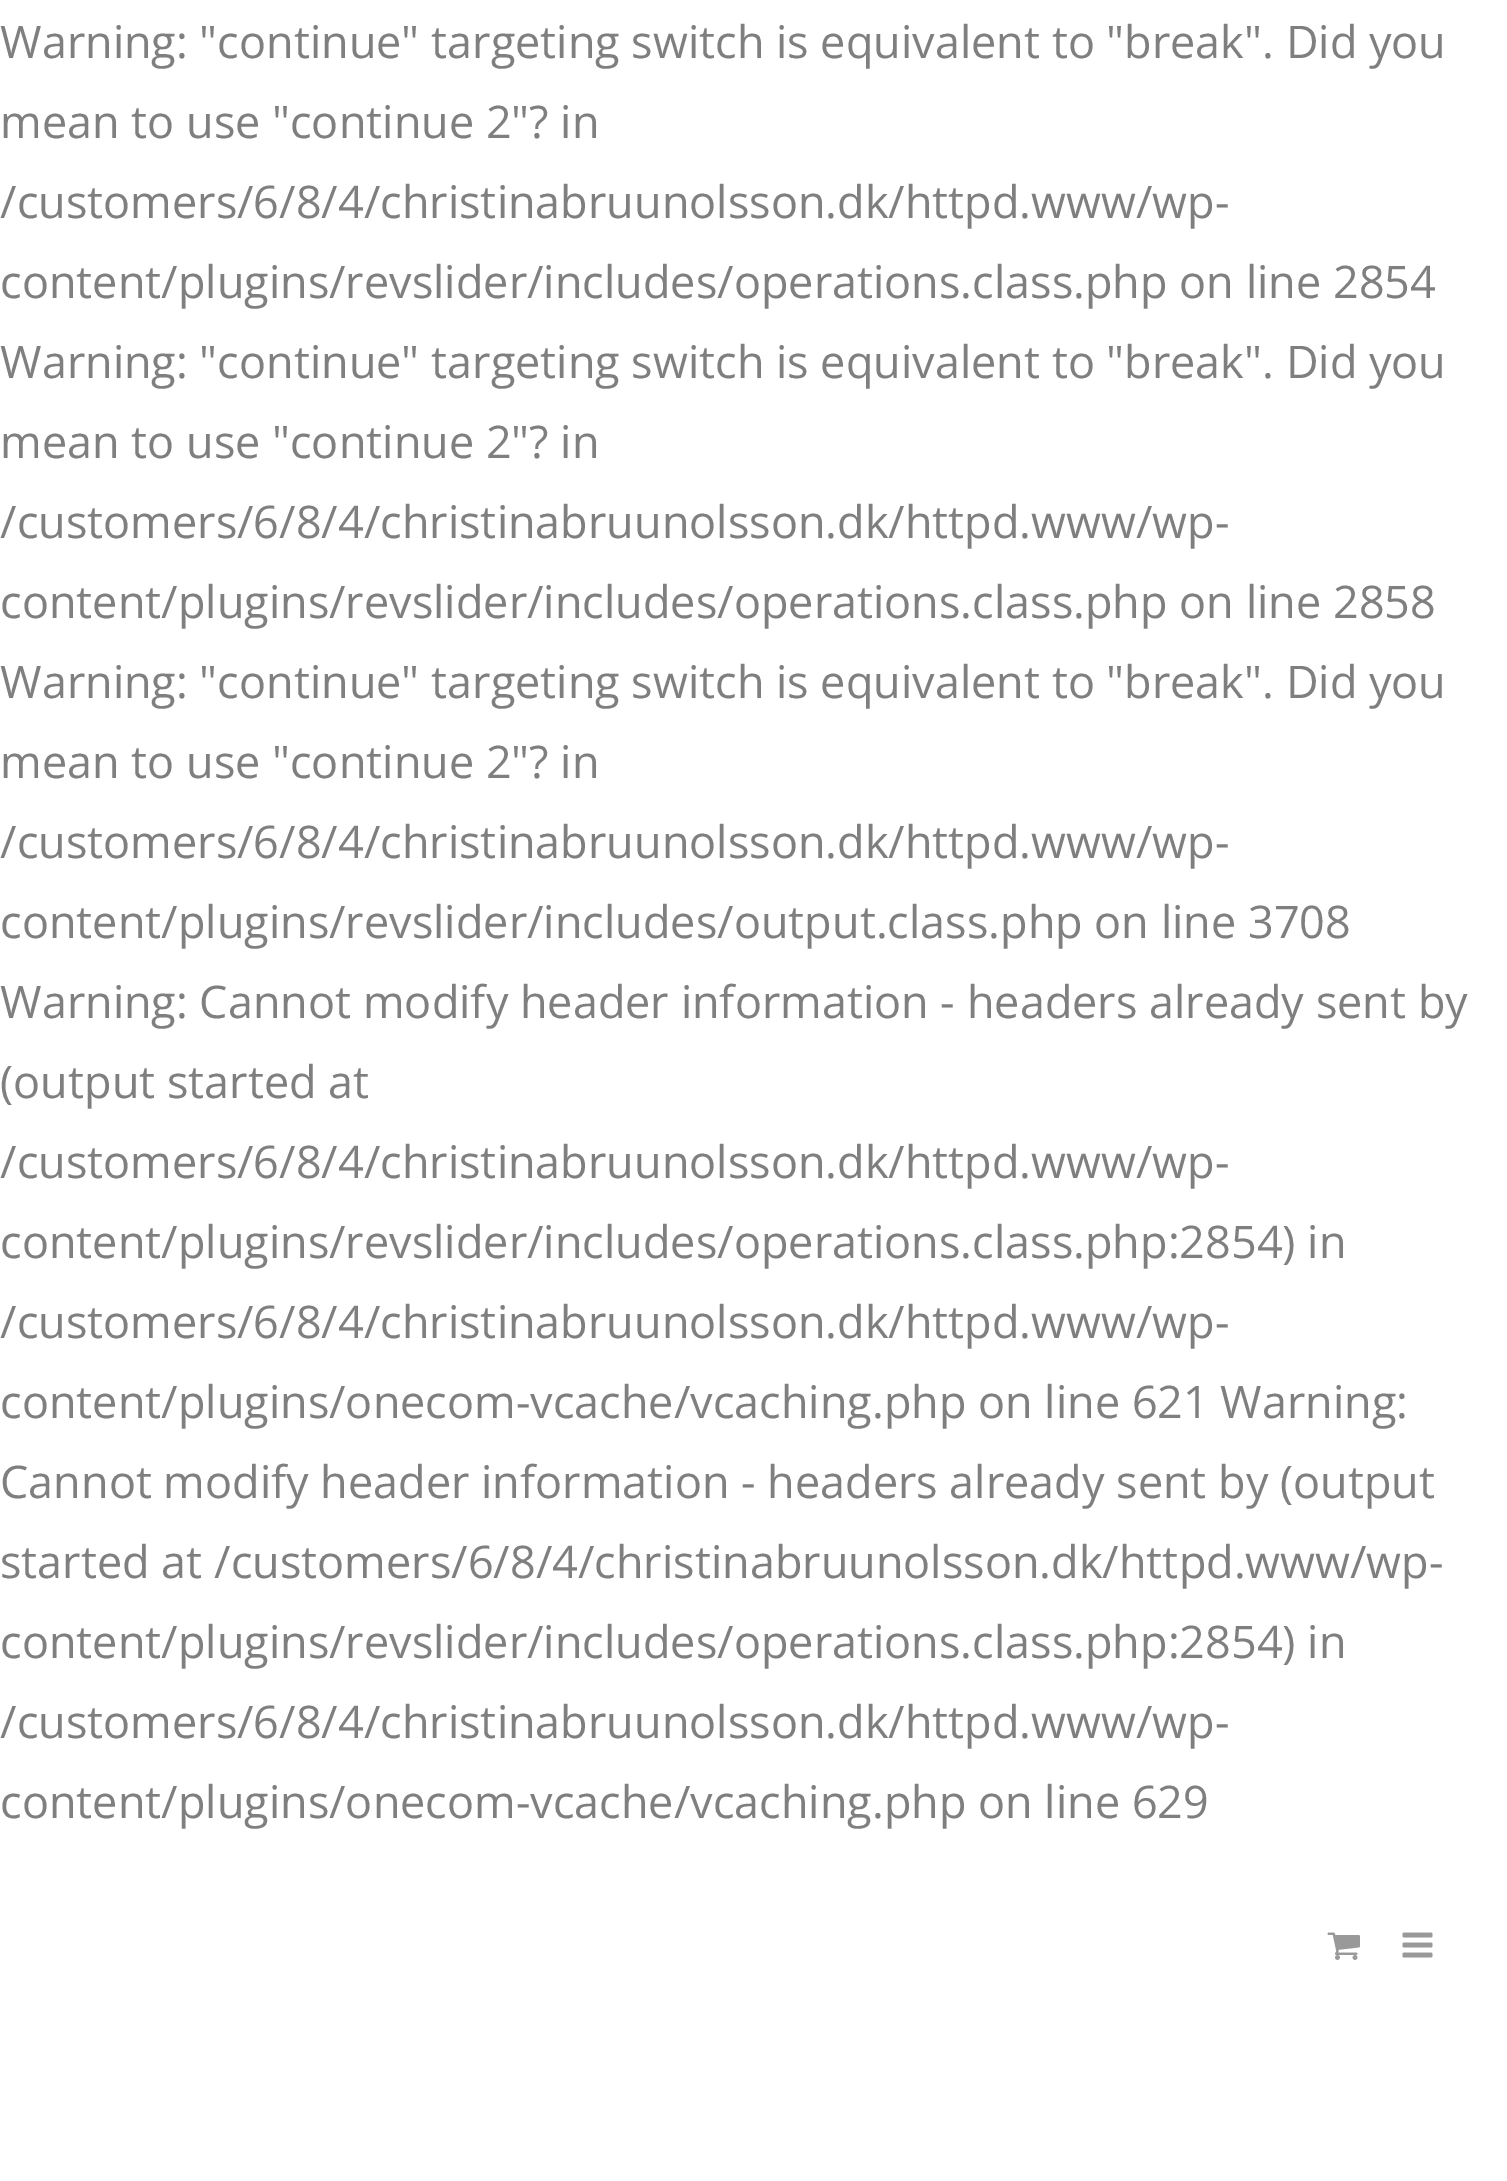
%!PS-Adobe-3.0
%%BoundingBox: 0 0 1507 2181
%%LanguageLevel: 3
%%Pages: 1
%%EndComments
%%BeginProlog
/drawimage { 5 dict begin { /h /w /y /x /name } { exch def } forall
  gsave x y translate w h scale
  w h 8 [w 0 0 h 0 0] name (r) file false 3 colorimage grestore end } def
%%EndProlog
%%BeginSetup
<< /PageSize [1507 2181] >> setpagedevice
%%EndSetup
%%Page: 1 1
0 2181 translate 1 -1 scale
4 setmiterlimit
1 setgray
0 0 1507 2181 rectfill
(images/1.raw) 1327 1932 33 28 drawimage
(images/2.raw) 1402 1932 31 26 drawimage
/OpenSans-Regular [45 0 0 -45 0 0] selectfont
0.498 setgray
0 58 moveto (Warning: "continue" targeting switch is equivalent to "break". Did you) show
0 138 moveto (mean to use "continue 2"? in) show
0 218 moveto (/customers/6/8/4/christinabruunolsson.dk/httpd.www/wp-) show
0 298 moveto (content/plugins/revslider/includes/operations.class.php on line 2854) show
0 378 moveto (Warning: "continue" targeting switch is equivalent to "break". Did you) show
0 458 moveto (mean to use "continue 2"? in) show
0 538 moveto (/customers/6/8/4/christinabruunolsson.dk/httpd.www/wp-) show
0 618 moveto (content/plugins/revslider/includes/operations.class.php on line 2858) show
0 698 moveto (Warning: "continue" targeting switch is equivalent to "break". Did you) show
0 778 moveto (mean to use "continue 2"? in) show
0 858 moveto (/customers/6/8/4/christinabruunolsson.dk/httpd.www/wp-) show
0 938 moveto (content/plugins/revslider/includes/output.class.php on line 3708) show
0 1018 moveto (Warning: Cannot modify header information - headers already sent by) show
0 1098 moveto (\(output started at) show
0 1178 moveto (/customers/6/8/4/christinabruunolsson.dk/httpd.www/wp-) show
0 1258 moveto (content/plugins/revslider/includes/operations.class.php:2854\) in) show
0 1338 moveto (/customers/6/8/4/christinabruunolsson.dk/httpd.www/wp-) show
0 1418 moveto (content/plugins/onecom-vcache/vcaching.php on line 621 Warning:) show
0 1498 moveto (Cannot modify header information - headers already sent by \(output) show
0 1578 moveto (started at /customers/6/8/4/christinabruunolsson.dk/httpd.www/wp-) show
0 1658 moveto (content/plugins/revslider/includes/operations.class.php:2854\) in) show
0 1738 moveto (/customers/6/8/4/christinabruunolsson.dk/httpd.www/wp-) show
0 1818 moveto (content/plugins/onecom-vcache/vcaching.php on line 629) show
showpage
%%EOF
